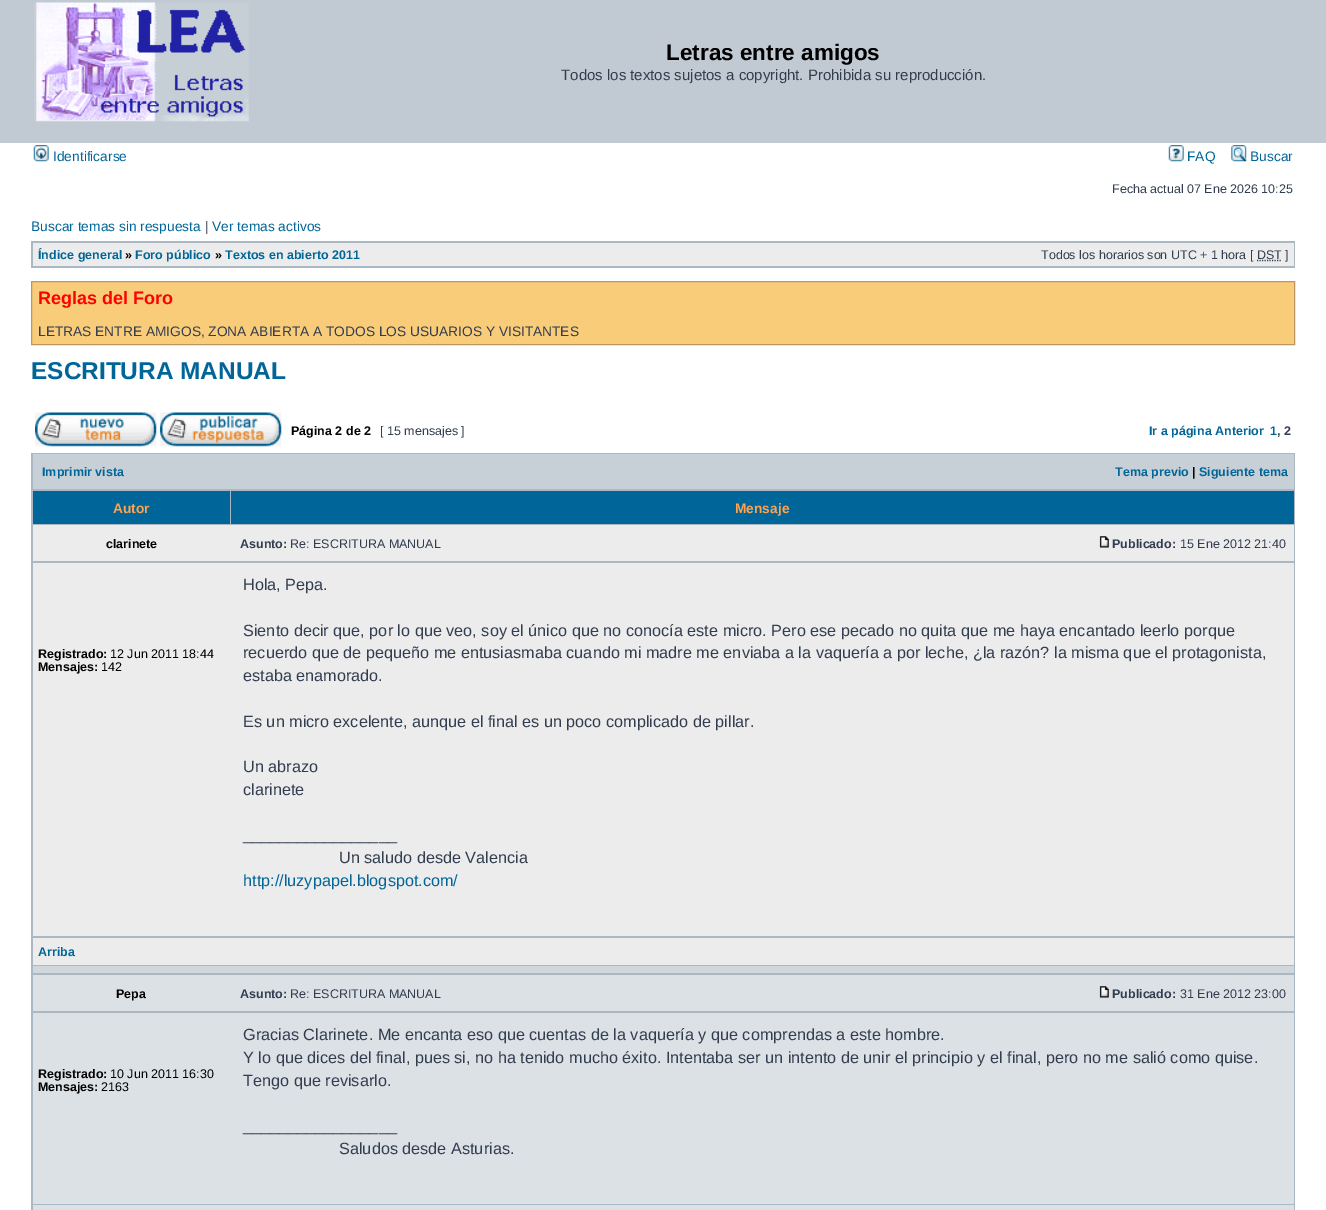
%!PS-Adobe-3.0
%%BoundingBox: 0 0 1326 1210
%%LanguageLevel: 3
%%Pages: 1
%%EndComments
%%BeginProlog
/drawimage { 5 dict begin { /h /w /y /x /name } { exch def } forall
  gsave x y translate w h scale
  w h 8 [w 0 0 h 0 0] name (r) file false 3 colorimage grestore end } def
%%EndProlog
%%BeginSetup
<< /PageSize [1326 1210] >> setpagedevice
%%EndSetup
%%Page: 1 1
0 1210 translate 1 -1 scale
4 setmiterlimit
1 setgray
0 0 1326 1210 rectfill
0.757 0.792 0.824 setrgbcolor
0 0 1326 143 rectfill
(images/1.raw) 34 2 215 120 drawimage
(images/2.raw) 33 145 16 17 drawimage
(images/3.raw) 1168 145 16 17 drawimage
(images/4.raw) 1231 145 16 17 drawimage
0.663 0.722 0.761 setrgbcolor
31 241 1264 27 rectfill
0.925 setgray
33 243 1261 23 rectfill
0.196 0.239 0.31 setrgbcolor
1.2 setlinewidth
[1.25 1.25] 0 setdash
newpath 1257 260.5 moveto 1282 260.5 lineto stroke
0.976 0.8 0.475 setrgbcolor
newpath 31.5 281.5 moveto 1294.5 281.5 lineto 1294.5 344.5 lineto 31.5 344.5 lineto closepath gsave fill grestore
0.733 0.596 0.376 setrgbcolor
1 setlinewidth
[] 0 setdash
stroke
(images/5.raw) 35 412 122 35 drawimage
(images/6.raw) 160 412 122 35 drawimage
0.663 0.722 0.761 setrgbcolor
31 453 1264 757 rectfill
0.78 0.816 0.843 setrgbcolor
33 454 1261 35 rectfill
0 0.4 0.6 setrgbcolor
33 491 197 33 rectfill
231 491 1063 33 rectfill
0.925 setgray
33 525 1261 36 rectfill
(images/7.raw) 1099 536 10 12 drawimage
33 563 1261 373 rectfill
33 938 1261 27 rectfill
0.82 0.843 0.863 setrgbcolor
33 966 1261 7 rectfill
0.863 0.882 0.898 setrgbcolor
33 975 1261 36 rectfill
(images/8.raw) 1099 986 10 12 drawimage
33 1013 1261 191 rectfill
33 1205 1261 5 rectfill
/LiberationSans-Bold [22.5 0 0 -22.5 0 0] selectfont
0 setgray
666 60 moveto (Letras entre amigos) show
/LiberationSans-Regular [15 0 0 -15 0 0] selectfont
0.196 0.239 0.31 setrgbcolor
561 80 moveto (Todos los textos sujetos a copyright. Prohibida su reproducción.) show
/LiberationSans-Regular [13.75 0 0 -13.75 0 0] selectfont
0 0.396 0.592 setrgbcolor
53 161 moveto (Identificarse) show
1187 161 moveto (FAQ) show
1250 161 moveto (Buscar) show
/LiberationSans-Regular [12.5 0 0 -12.5 0 0] selectfont
0.196 0.239 0.31 setrgbcolor
1112 193 moveto (Fecha actual 07 Ene 2026 10:25) show
/LiberationSans-Regular [13.75 0 0 -13.75 0 0] selectfont
0 0.396 0.592 setrgbcolor
31 231 moveto (Buscar temas sin respuesta) show
0.196 0.239 0.31 setrgbcolor
205 231 moveto (|) show
0 0.396 0.592 setrgbcolor
212 231 moveto (Ver temas activos) show
/LiberationSans-Bold [12.5 0 0 -12.5 0 0] selectfont
38 259 moveto (Índice general) show
0 setgray
125 259 moveto (») show
0 0.396 0.592 setrgbcolor
135 259 moveto (Foro público) show
0 setgray
215 259 moveto (») show
0 0.396 0.592 setrgbcolor
225 259 moveto (Textos en abierto 2011) show
/LiberationSans-Regular [12.5 0 0 -12.5 0 0] selectfont
0.196 0.239 0.31 setrgbcolor
1041 259 moveto (Todos los horarios son UTC + 1 hora [) show
1257 259 moveto (DST ]) show
/LiberationSans-Bold [18 0 0 -18 0 0] selectfont
1 0 0 setrgbcolor
38 304 moveto (Reglas del Foro) show
/LiberationSans-Regular [13.75 0 0 -13.75 0 0] selectfont
0.196 0.239 0.31 setrgbcolor
38 336 moveto (LETRAS ENTRE AMIGOS, ZONA ABIERTA A TODOS LOS USUARIOS Y VISITANTES) show
/LiberationSans-Bold [24.4 0 0 -24.4 0 0] selectfont
0 0.396 0.592 setrgbcolor
31 379 moveto (ESCRITURA MANUAL) show
/LiberationSans-Bold [12.5 0 0 -12.5 0 0] selectfont
0 setgray
291 435 moveto (Página 2 de 2) show
/LiberationSans-Regular [12.5 0 0 -12.5 0 0] selectfont
0.196 0.239 0.31 setrgbcolor
380 435 moveto ([ 15 mensajes ]) show
/LiberationSans-Bold [12.5 0 0 -12.5 0 0] selectfont
0 0.396 0.592 setrgbcolor
1149 435 moveto (Ir a página Anterior) show
1270 435 moveto (1) show
0.196 0.239 0.31 setrgbcolor
1277 435 moveto (, 2) show
0 0.396 0.592 setrgbcolor
42 476 moveto (Imprimir vista) show
1115 476 moveto (Tema previo) show
0 setgray
1192 476 moveto (|) show
0 0.396 0.592 setrgbcolor
1199 476 moveto (Siguiente tema) show
/LiberationSans-Bold [13.75 0 0 -13.75 0 0] selectfont
1 0.639 0.31 setrgbcolor
113 513 moveto (Autor) show
735 513 moveto (Mensaje) show
/LiberationSans-Bold [12.5 0 0 -12.5 0 0] selectfont
0 setgray
106 548 moveto (clarinete) show
0.196 0.239 0.31 setrgbcolor
240 548 moveto (Asunto:) show
/LiberationSans-Regular [12.5 0 0 -12.5 0 0] selectfont
290 548 moveto (Re: ESCRITURA MANUAL) show
/LiberationSans-Bold [12.5 0 0 -12.5 0 0] selectfont
1112 548 moveto (Publicado:) show
/LiberationSans-Regular [12.5 0 0 -12.5 0 0] selectfont
1180 548 moveto (15 Ene 2012 21:40) show
/LiberationSans-Bold [12.5 0 0 -12.5 0 0] selectfont
0 setgray
38 658 moveto (Registrado:) show
/LiberationSans-Regular [12.5 0 0 -12.5 0 0] selectfont
110 658 moveto (12 Jun 2011 18:44) show
/LiberationSans-Bold [12.5 0 0 -12.5 0 0] selectfont
38 671 moveto (Mensajes:) show
/LiberationSans-Regular [12.5 0 0 -12.5 0 0] selectfont
101 671 moveto (142) show
/LiberationSans-Regular [16.25 0 0 -16.25 0 0] selectfont
0.196 0.239 0.31 setrgbcolor
243 590 moveto (Hola, Pepa.) show
243 636 moveto (Siento decir que, por lo que veo, soy el único que no conocía este micro. Pero ese pecado no quita que me haya encantado leerlo porque) show
243 658 moveto (recuerdo que de pequeño me entusiasmaba cuando mi madre me enviaba a la vaquería a por leche, ¿la razón? la misma que el protagonista,) show
243 681 moveto (estaba enamorado.) show
243 727 moveto (Es un micro excelente, aunque el final es un poco complicado de pillar.) show
243 772 moveto (Un abrazo) show
243 795 moveto (clarinete) show
243 840 moveto (_________________) show
339 863 moveto (Un saludo desde Valencia) show
0 0.396 0.592 setrgbcolor
243 886 moveto (http://luzypapel.blogspot.com/) show
/LiberationSans-Bold [12.5 0 0 -12.5 0 0] selectfont
38 956 moveto (Arriba) show
0 setgray
116 998 moveto (Pepa) show
0.196 0.239 0.31 setrgbcolor
240 998 moveto (Asunto:) show
/LiberationSans-Regular [12.5 0 0 -12.5 0 0] selectfont
290 998 moveto (Re: ESCRITURA MANUAL) show
/LiberationSans-Bold [12.5 0 0 -12.5 0 0] selectfont
1112 998 moveto (Publicado:) show
/LiberationSans-Regular [12.5 0 0 -12.5 0 0] selectfont
1180 998 moveto (31 Ene 2012 23:00) show
/LiberationSans-Bold [12.5 0 0 -12.5 0 0] selectfont
0 setgray
38 1078 moveto (Registrado:) show
/LiberationSans-Regular [12.5 0 0 -12.5 0 0] selectfont
110 1078 moveto (10 Jun 2011 16:30) show
/LiberationSans-Bold [12.5 0 0 -12.5 0 0] selectfont
38 1091 moveto (Mensajes:) show
/LiberationSans-Regular [12.5 0 0 -12.5 0 0] selectfont
101 1091 moveto (2163) show
/LiberationSans-Regular [16.25 0 0 -16.25 0 0] selectfont
0.196 0.239 0.31 setrgbcolor
243 1040 moveto (Gracias Clarinete. Me encanta eso que cuentas de la vaquería y que comprendas a este hombre.) show
243 1063 moveto (Y lo que dices del final, pues si, no ha tenido mucho éxito. Intentaba ser un intento de unir el principio y el final, pero no me salió como quise.) show
243 1086 moveto (Tengo que revisarlo.) show
243 1131 moveto (_________________) show
339 1154 moveto (Saludos desde Asturias.) show
showpage
%%EOF
